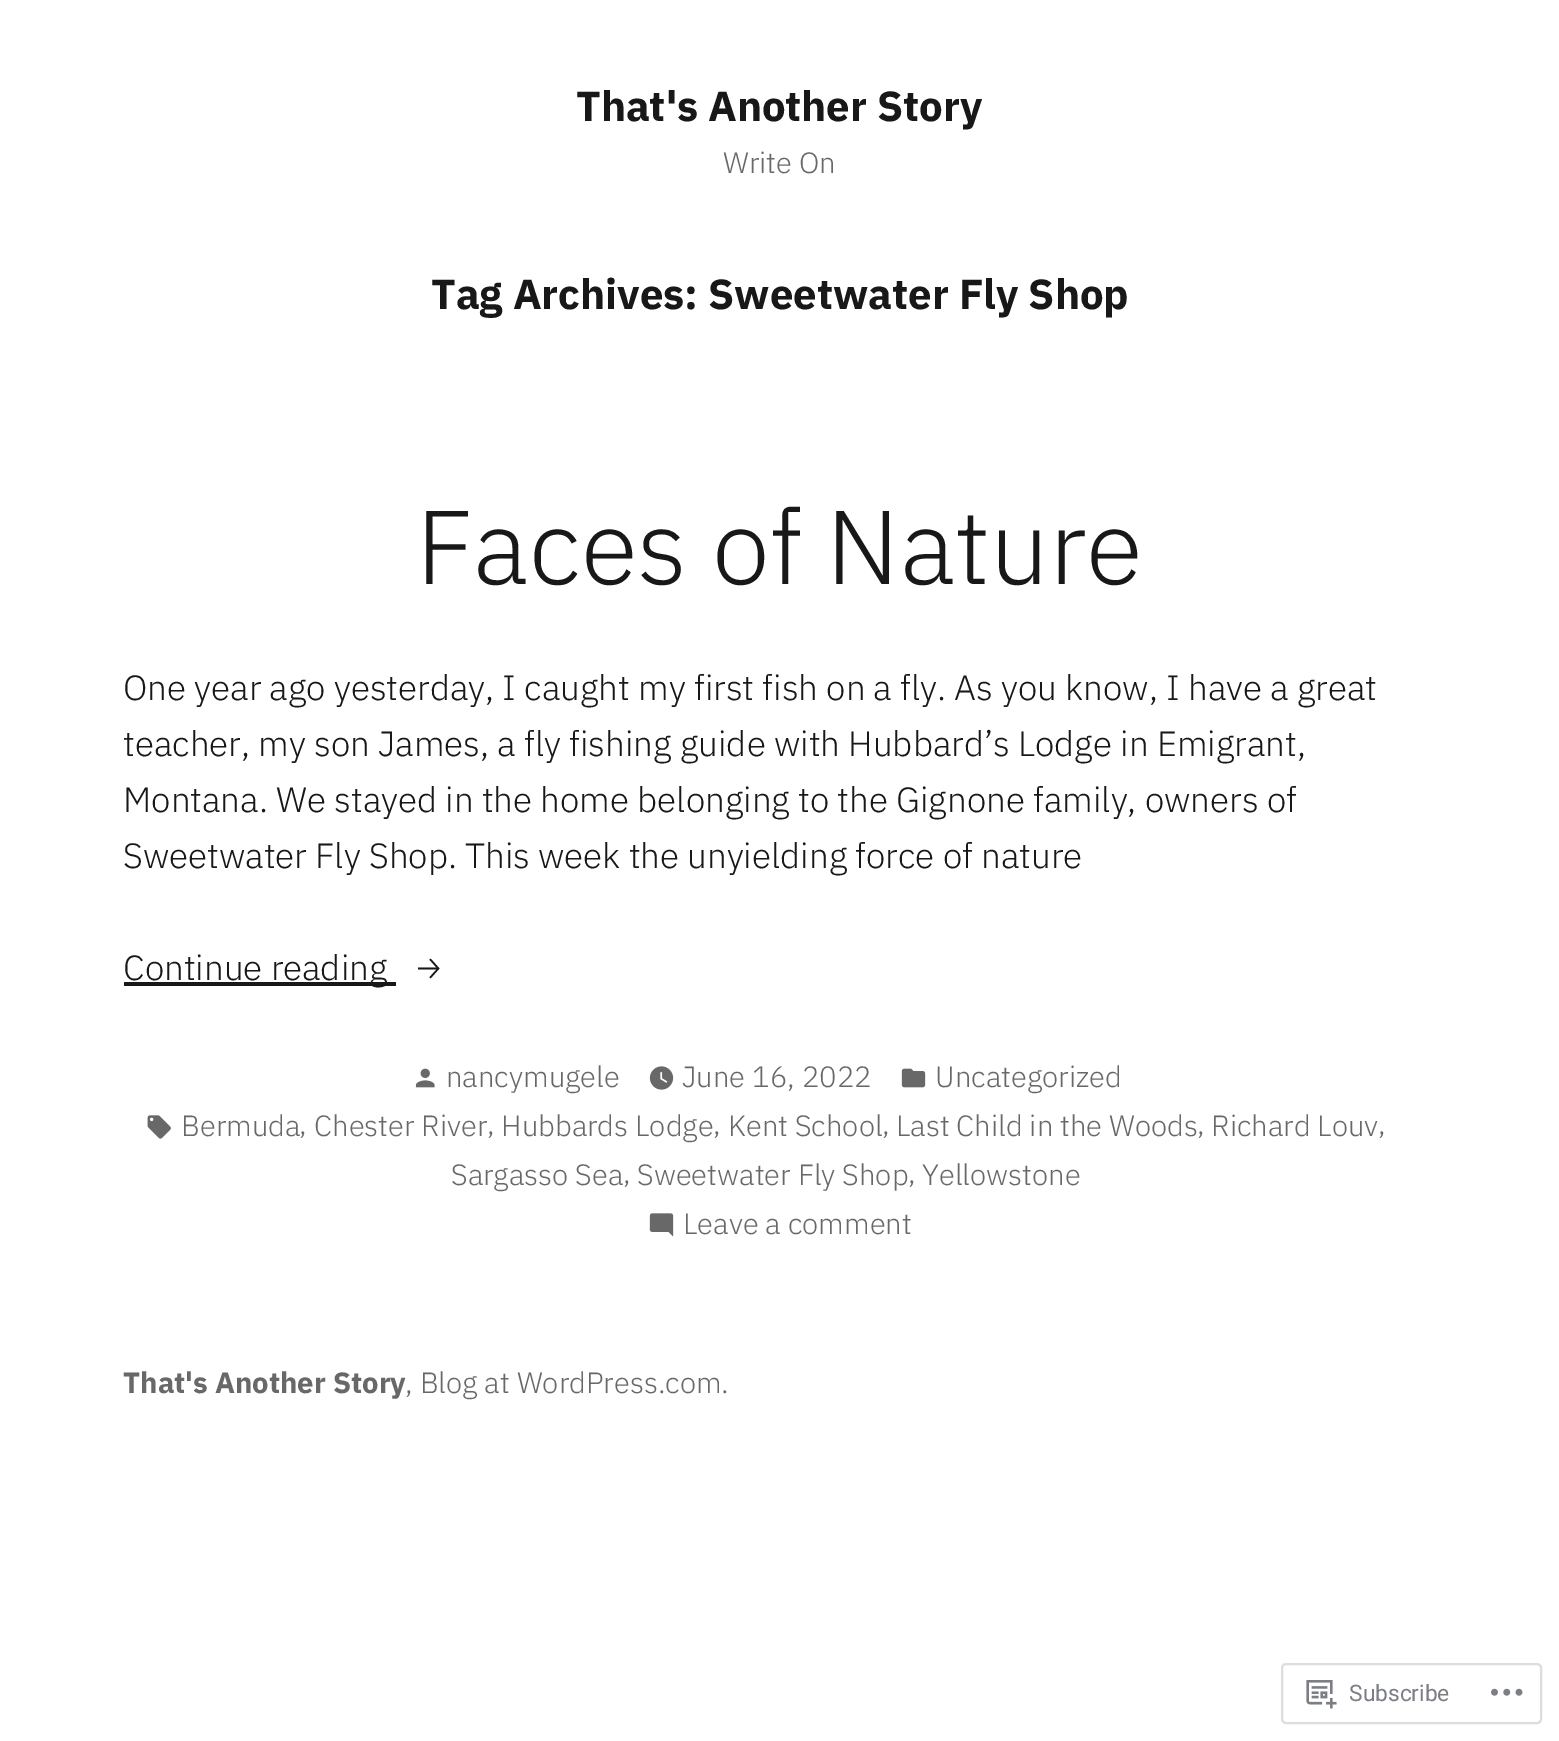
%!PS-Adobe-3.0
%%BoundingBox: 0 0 1559 1741
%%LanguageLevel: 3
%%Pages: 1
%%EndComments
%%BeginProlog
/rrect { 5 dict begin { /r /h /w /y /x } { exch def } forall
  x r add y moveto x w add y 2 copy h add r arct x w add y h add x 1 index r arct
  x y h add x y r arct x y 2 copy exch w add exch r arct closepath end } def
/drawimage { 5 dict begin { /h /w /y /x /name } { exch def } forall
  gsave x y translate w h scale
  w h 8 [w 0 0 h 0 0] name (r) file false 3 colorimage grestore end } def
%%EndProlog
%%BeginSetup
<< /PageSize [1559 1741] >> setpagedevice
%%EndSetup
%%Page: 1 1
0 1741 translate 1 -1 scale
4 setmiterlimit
1 setgray
0 0 1559 1741 rectfill
0.094 setgray
124 982 272 4 rectfill
(images/1.raw) 415 1068 20 20 drawimage
(images/2.raw) 649 1066 25 24 drawimage
(images/3.raw) 901 1068 25 20 drawimage
(images/4.raw) 147 1115 24 24 drawimage
(images/5.raw) 649 1213 25 24 drawimage
0.867 0.867 0.875 setrgbcolor
2 setlinewidth
1282 1664 259 59 4 rrect stroke
(images/6.raw) 1306 1680 31 29 drawimage
(images/7.raw) 1491 1688 32 8 drawimage
/IBMPlexSans-Bold [42 0 0 -42 0 0] selectfont
0.094 setgray
576 121 moveto (That's Another Story) show
/IBMPlexSans-Light [29.25 0 0 -29.25 0 0] selectfont
0.408 setgray
723 173 moveto (Write On) show
/IBMPlexSans-Bold [42 0 0 -42 0 0] selectfont
0.094 setgray
431 309 moveto (Tag Archives: Sweetwater Fly Shop) show
/IBMPlexSans-Light [104.5 0 0 -104.5 0 0] selectfont
416 584 moveto (Faces of Nature) show
/IBMPlexSans-Light [35 0 0 -35 0 0] selectfont
123 700 moveto (One year ago yesterday, I caught my first fish on a fly. As you know, I have a great) show
123 756 moveto (teacher, my son James, a fly fishing guide with Hubbard’s Lodge in Emigrant,) show
123 812 moveto (Montana. We stayed in the home belonging to the Gignone family, owners of) show
123 868 moveto (Sweetwater Fly Shop. This week the unyielding force of nature) show
123 980 moveto (Continue reading) show
/FiraSans-Light [35 0 0 -35 0 0] selectfont
413 980 moveto (→) show
/IBMPlexSans-Light [29.25 0 0 -29.25 0 0] selectfont
0.408 setgray
446 1087 moveto (nancymugele) show
682 1087 moveto (June 16, 2022) show
935 1087 moveto (Uncategorized) show
181 1136 moveto (Bermuda) show
299 1134 moveto (,) show
314 1136 moveto (Chester River) show
487 1134 moveto (,) show
501 1136 moveto (Hubbards Lodge) show
713 1134 moveto (,) show
728 1136 moveto (Kent School) show
882 1134 moveto (,) show
896 1136 moveto (Last Child in the Woods) show
1197 1134 moveto (,) show
1211 1136 moveto (Richard Louv) show
1378 1134 moveto (,) show
451 1185 moveto (Sargasso Sea) show
623 1183 moveto (,) show
637 1185 moveto (Sweetwater Fly Shop) show
908 1183 moveto (,) show
922 1185 moveto (Yellowstone) show
683 1234 moveto (Leave a comment) show
/IBMPlexSans-Bold [29.25 0 0 -29.25 0 0] selectfont
123 1393 moveto (That's Another Story) show
/IBMPlexSans-Light [29.25 0 0 -29.25 0 0] selectfont
405 1393 moveto (, Blog at WordPress.com.) show
/Roboto-Regular [22.75 0 0 -22.75 0 0] selectfont
0.482 0.498 0.522 setrgbcolor
1349 1701 moveto (Subscribe) show
showpage
%%EOF
